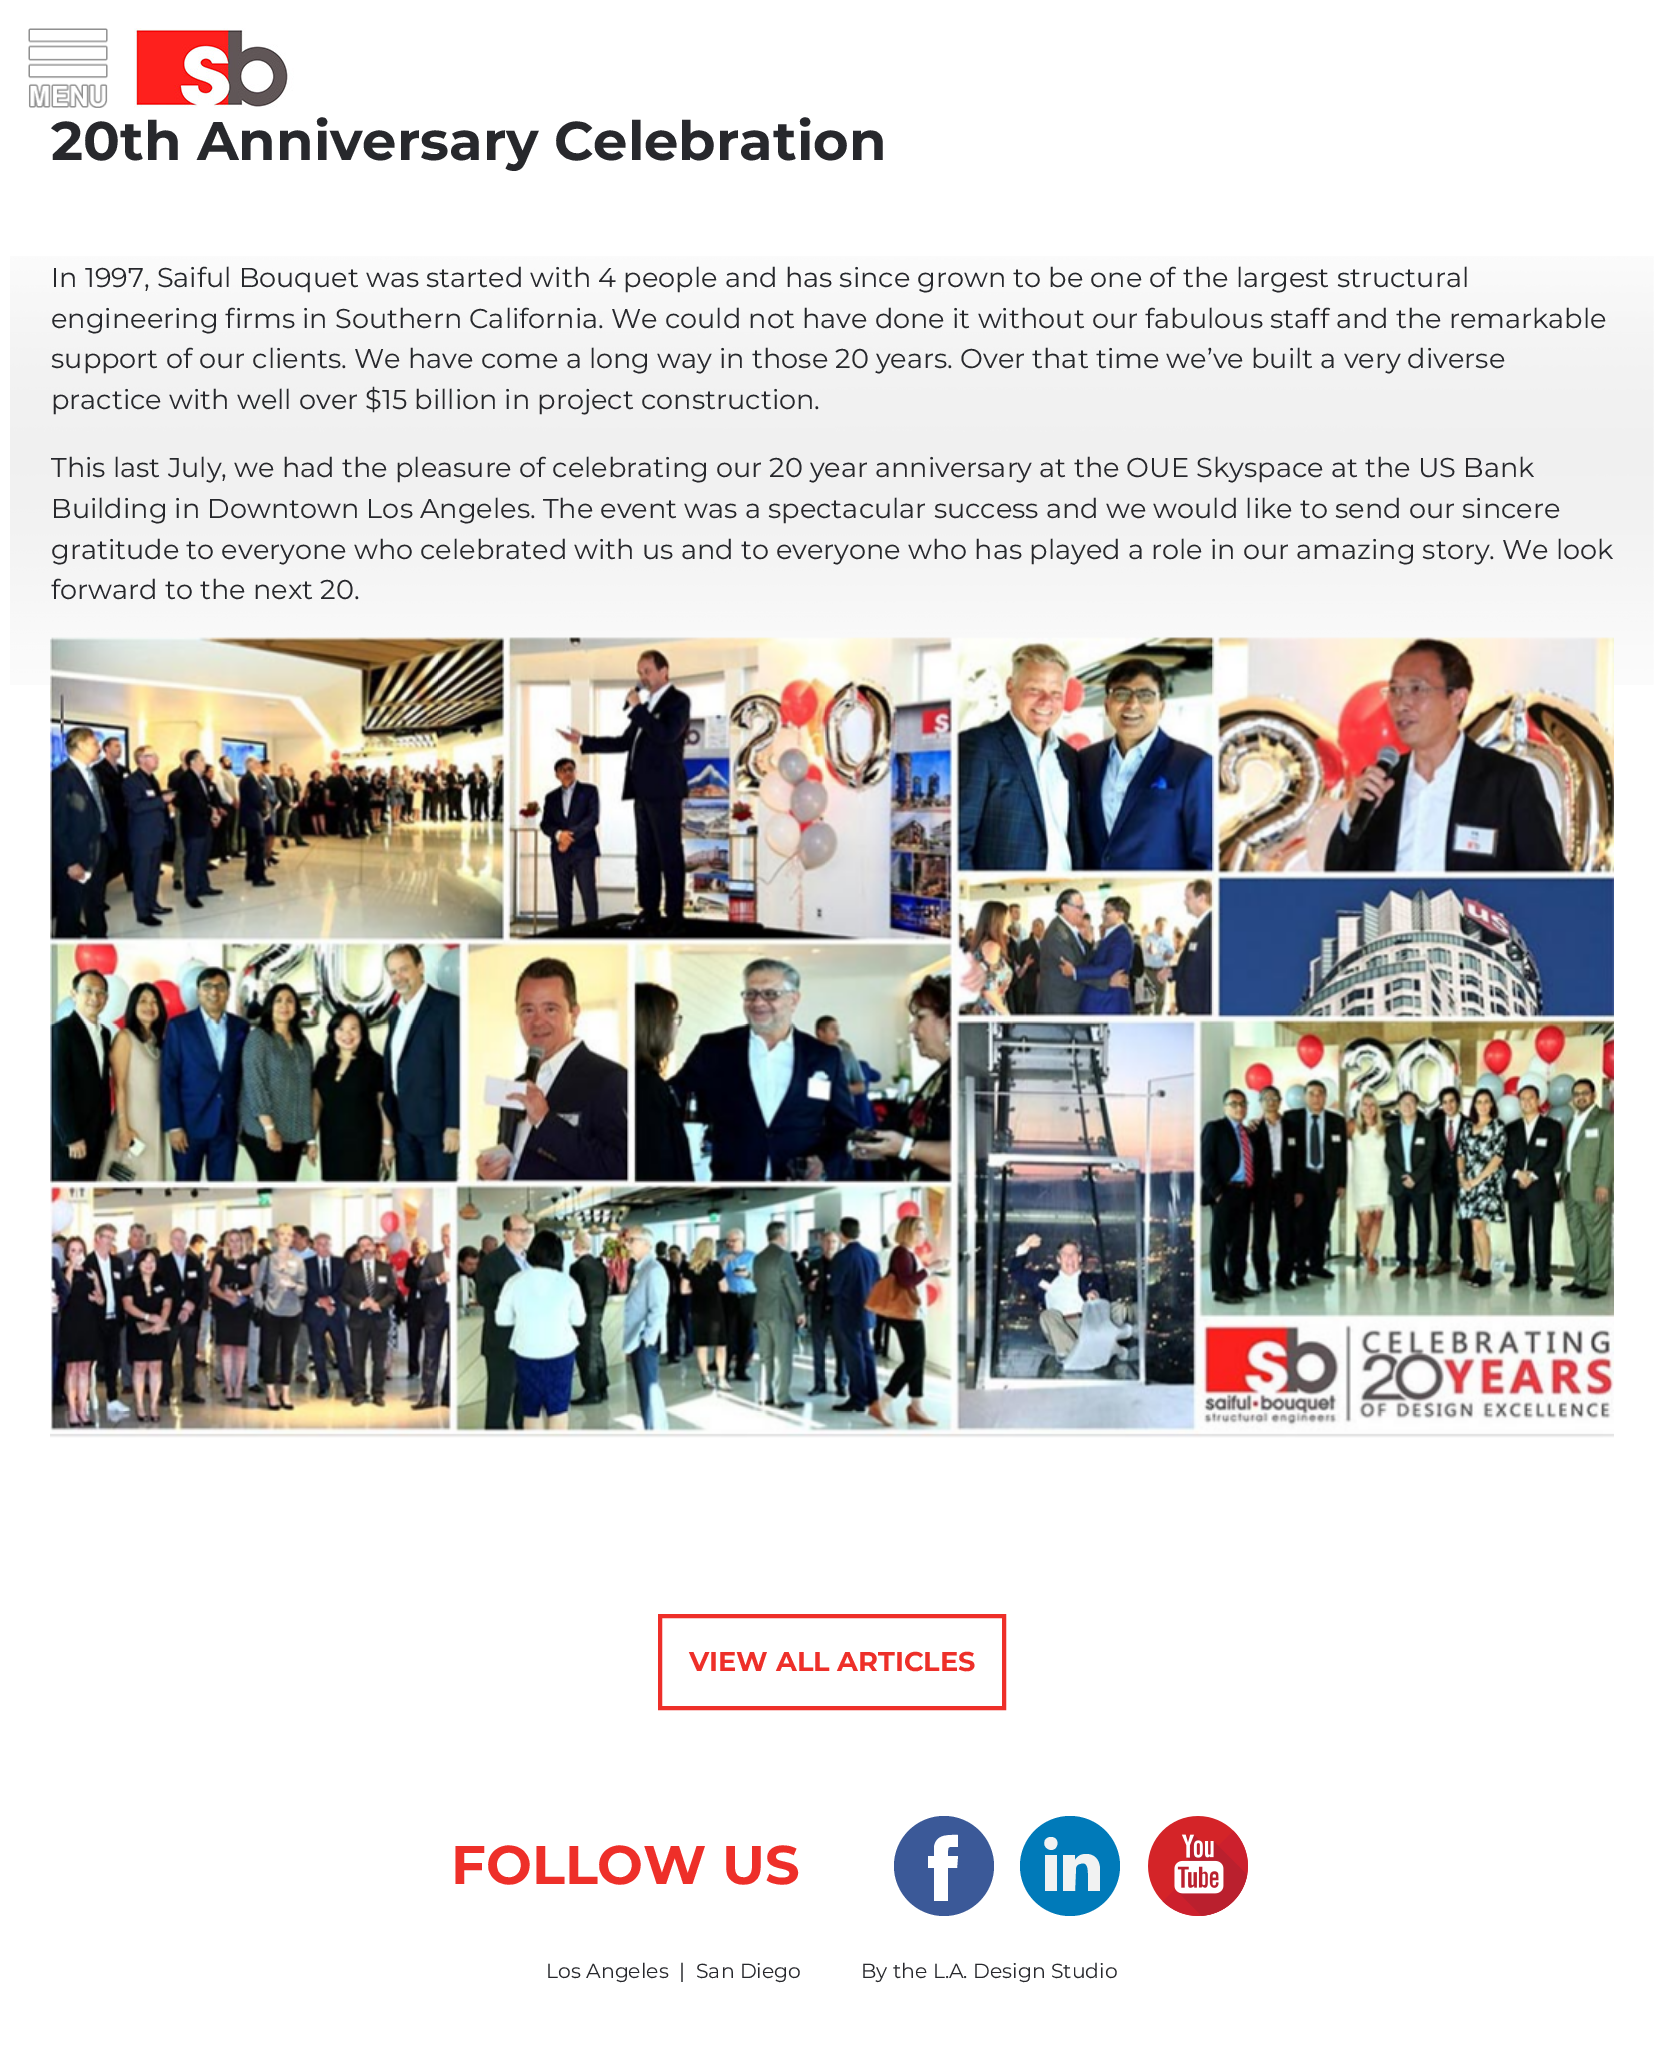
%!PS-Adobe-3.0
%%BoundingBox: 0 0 1664 2055
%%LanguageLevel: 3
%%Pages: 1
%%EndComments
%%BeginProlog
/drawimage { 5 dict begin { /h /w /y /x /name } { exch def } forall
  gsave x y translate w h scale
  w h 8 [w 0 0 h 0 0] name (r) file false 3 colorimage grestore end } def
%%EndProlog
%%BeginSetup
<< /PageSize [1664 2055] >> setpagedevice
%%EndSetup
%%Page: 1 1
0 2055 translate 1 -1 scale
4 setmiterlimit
1 setgray
0 0 1664 2055 rectfill
(images/1.raw) 28 28 80 80 drawimage
(images/2.raw) 134 28 160 80 drawimage
(images/3.raw) 10 256 1644 429 drawimage
(images/4.raw) 50 637 1564 801 drawimage
0.933 0.184 0.161 setrgbcolor
4 setlinewidth
660 1616 344 92 rectstroke
0.231 0.349 0.596 setrgbcolor
newpath 944 1866 50 0 360 arc closepath fill
1 setgray
newpath 957 1868 moveto 948 1868 lineto 948 1901 lineto 934 1901 lineto 934 1868 lineto 928 1868 lineto 928 1856 lineto 934 1856 lineto 934 1847 lineto 936 1834 948 1835 958 1835 curveto 958 1847 lineto 947 1847 948 1845 948 1856 curveto 958 1856 lineto closepath fill
0 0.478 0.725 setrgbcolor
newpath 1070 1866 50 0 360 arc closepath fill
0.945 0.949 0.949 setrgbcolor
newpath 1100 1870 moveto 1100 1891 lineto 1088 1891 lineto 1088 1878 lineto 1088 1873 1089 1860 1080 1864 curveto 1078 1864 1076 1866 1076 1868 curveto 1075 1891 lineto 1063 1891 lineto 1063 1855 lineto 1075 1855 lineto 1075 1860 lineto 1077 1857 1080 1854 1086 1854 curveto 1094 1854 1100 1859 1100 1870 curveto closepath 1051 1837 moveto 1042 1837 1042 1849 1051 1850 curveto 1059 1850 1060 1837 1051 1837 curveto closepath 1045 1891 moveto 1057 1891 lineto 1057 1855 lineto 1045 1855 lineto closepath fill
(images/5.raw) 1148 1816 100 100 drawimage
/Montserrat-Bold [54.4 0 0 -54.4 0 0] selectfont
0.153 0.157 0.173 setrgbcolor
51 160 moveto (20th Anniversary Celebration) show
/Montserrat-Regular [27.2 0 0 -27.2 0 0] selectfont
51 287 moveto (In 1997, Saiful Bouquet was started with 4 people and has since grown to be one of the largest structural) show
51 328 moveto (engineering firms in Southern California. We could not have done it without our fabulous staff and the remarkable) show
51 368 moveto (support of our clients. We have come a long way in those 20 years. Over that time we’ve built a very diverse) show
51 409 moveto (practice with well over $15 billion in project construction.) show
51 477 moveto (This last July, we had the pleasure of celebrating our 20 year anniversary at the OUE Skyspace at the US Bank) show
51 518 moveto (Building in Downtown Los Angeles. The event was a spectacular success and we would like to send our sincere) show
51 559 moveto (gratitude to everyone who celebrated with us and to everyone who has played a role in our amazing story. We look) show
51 599 moveto (forward to the next 20.) show
/Montserrat-Bold [27.2 0 0 -27.2 0 0] selectfont
0.933 0.184 0.161 setrgbcolor
689 1671 moveto (VIEW ALL ARTICLES) show
/Montserrat-Bold [54.4 0 0 -54.4 0 0] selectfont
451 1884 moveto (FOLLOW US) show
/Montserrat-Regular [20.4 0 0 -20.4 0 0] selectfont
0.153 0.157 0.173 setrgbcolor
546 1978 moveto (Los Angeles  |  San Diego) show
861 1978 moveto (By the L.A. Design Studio) show
showpage
%%EOF
